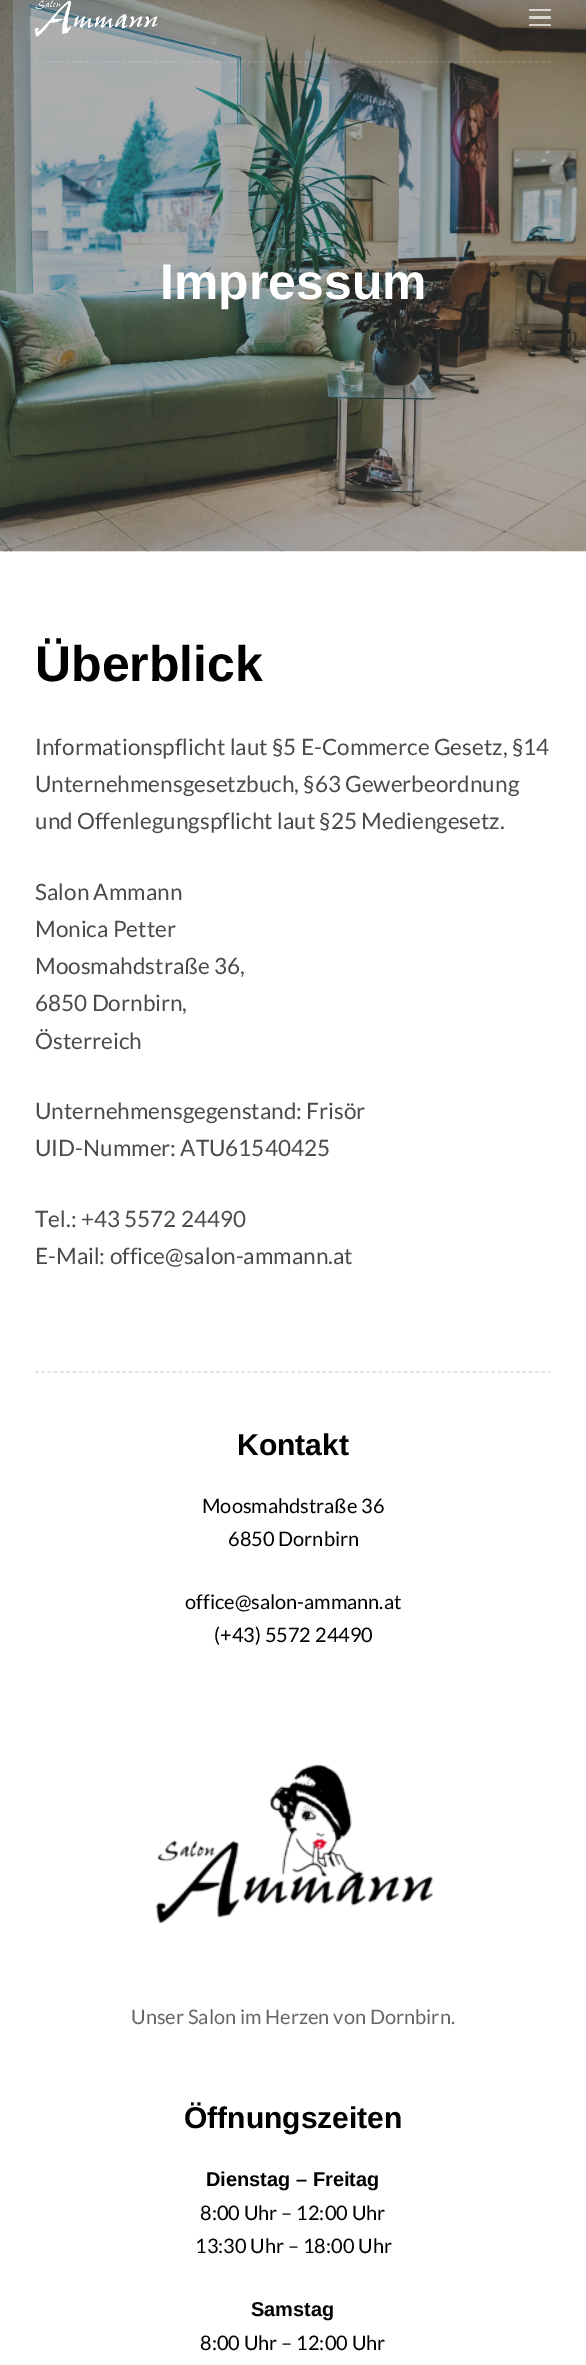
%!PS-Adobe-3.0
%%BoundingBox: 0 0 586 2365
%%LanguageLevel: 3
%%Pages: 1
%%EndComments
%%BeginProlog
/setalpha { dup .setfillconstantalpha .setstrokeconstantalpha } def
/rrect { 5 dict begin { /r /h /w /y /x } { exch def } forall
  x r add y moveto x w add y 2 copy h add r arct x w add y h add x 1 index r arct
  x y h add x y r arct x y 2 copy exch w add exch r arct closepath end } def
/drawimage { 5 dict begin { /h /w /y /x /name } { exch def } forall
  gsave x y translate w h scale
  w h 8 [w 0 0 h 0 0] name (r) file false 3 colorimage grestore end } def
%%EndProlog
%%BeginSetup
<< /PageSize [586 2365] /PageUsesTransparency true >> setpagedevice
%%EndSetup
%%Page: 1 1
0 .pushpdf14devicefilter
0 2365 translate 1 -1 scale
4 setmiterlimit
1 setgray
0 0 586 2365 rectfill
(images/2.raw) 0 0 586 552 drawimage
0.15 setalpha
1.2 setlinewidth
[3.75 2.5] 0 setdash
newpath 35 62 moveto 551 62 lineto stroke
1 setalpha
(images/1.raw) 35 0 123 37 drawimage
0.7 setalpha
529 9 22 2 1 rrect fill
529 16 22 3 1.5 rrect fill
529 24 22 2 1 rrect fill
1 setalpha
0.851 setgray
newpath 35 1372 moveto 551 1372 lineto stroke
(images/3.raw) 156 1764 277 160 drawimage
/LiberationSans-Bold [50 0 0 -50 0 0] selectfont
1 setgray
160 299 moveto (Impressum) show
0 setgray
35 681 moveto (Überblick) show
/Lato-Regular [22.5 0 0 -22.5 0 0] selectfont
0.29 setgray
35 755 moveto (Informationspflicht laut §5 E-Commerce Gesetz, §14) show
35 792 moveto (Unternehmensgesetzbuch, §63 Gewerbeordnung) show
35 829 moveto (und Offenlegungspflicht laut §25 Mediengesetz.) show
35 900 moveto (Salon Ammann) show
35 937 moveto (Monica Petter) show
35 974 moveto (Moosmahdstraße 36,) show
35 1011 moveto (6850 Dornbirn,) show
35 1049 moveto (Österreich) show
35 1119 moveto (Unternehmensgegenstand: Frisör) show
35 1156 moveto (UID-Nummer: ATU61540425) show
35 1227 moveto (Tel.: +43 5572 24490) show
35 1264 moveto (E-Mail: office@salon-ammann.at) show
/LiberationSans-Bold [30 0 0 -30 0 0] selectfont
0 setgray
237 1455 moveto (Kontakt) show
/Lato-Regular [20 0 0 -20 0 0] selectfont
202 1513 moveto (Moosmahdstraße 36) show
228 1546 moveto (6850 Dornbirn) show
185 1609 moveto (office@salon-ammann.at) show
214 1642 moveto (\(+43\) 5572 24490) show
0.4 setgray
131 2024 moveto (Unser Salon im Herzen von Dornbirn.) show
/LiberationSans-Bold [30 0 0 -30 0 0] selectfont
0 setgray
184 2128 moveto (Öffnungszeiten) show
/LiberationSans-Bold [20 0 0 -20 0 0] selectfont
206 2186 moveto (Dienstag – Freitag) show
/Lato-Regular [20 0 0 -20 0 0] selectfont
200 2220 moveto (8:00 Uhr – 12:00 Uhr) show
195 2253 moveto (13:30 Uhr – 18:00 Uhr) show
/LiberationSans-Bold [20 0 0 -20 0 0] selectfont
251 2316 moveto (Samstag) show
/Lato-Regular [20 0 0 -20 0 0] selectfont
200 2350 moveto (8:00 Uhr – 12:00 Uhr) show
.poppdf14devicefilter showpage
%%EOF
